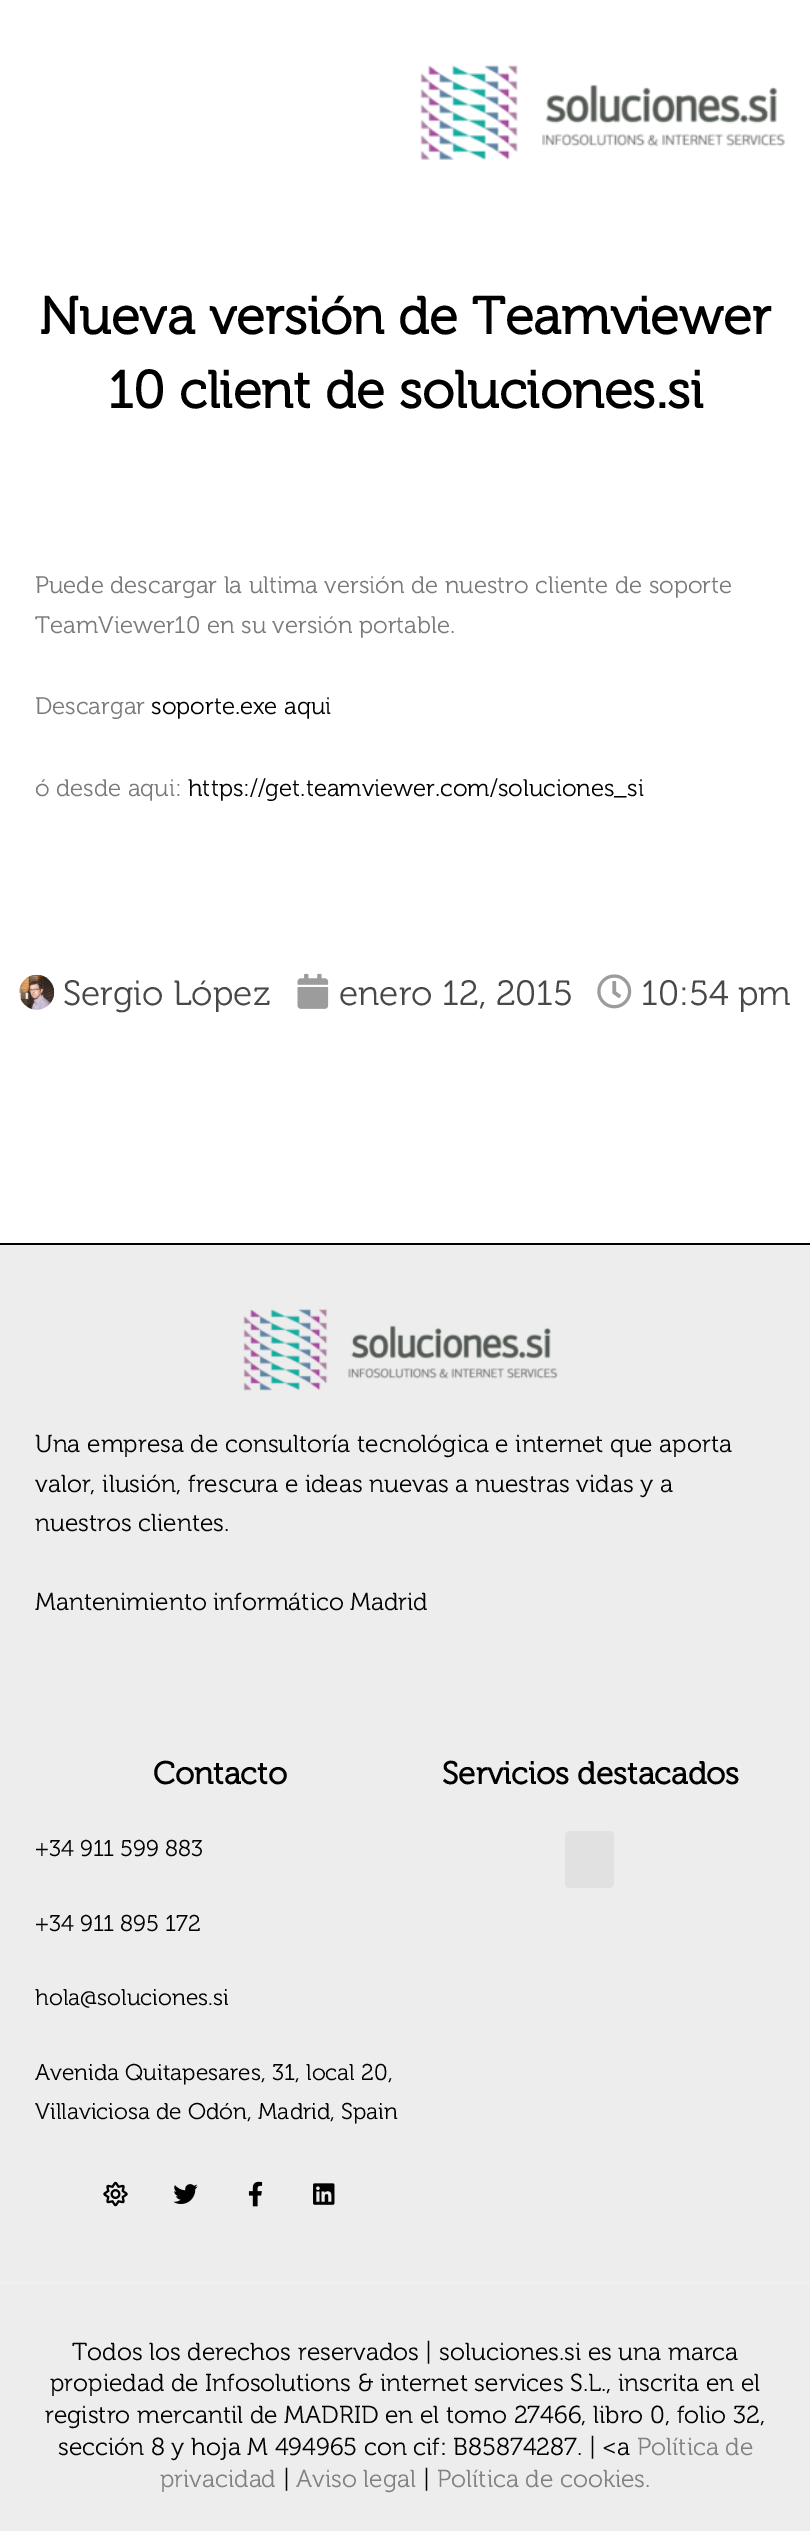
%!PS-Adobe-3.0
%%BoundingBox: 0 0 810 2533
%%LanguageLevel: 3
%%Pages: 1
%%EndComments
%%BeginProlog
/rrect { 5 dict begin { /r /h /w /y /x } { exch def } forall
  x r add y moveto x w add y 2 copy h add r arct x w add y h add x 1 index r arct
  x y h add x y r arct x y 2 copy exch w add exch r arct closepath end } def
/drawimage { 5 dict begin { /h /w /y /x /name } { exch def } forall
  gsave x y translate w h scale
  w h 8 [w 0 0 h 0 0] name (r) file false 3 colorimage grestore end } def
%%EndProlog
%%BeginSetup
<< /PageSize [810 2533] >> setpagedevice
%%EndSetup
%%Page: 1 1
0 2533 translate 1 -1 scale
4 setmiterlimit
1 setgray
0 0 810 2533 rectfill
(images/1.raw) 420 65 365 95 drawimage
(images/2.raw) 19 974 36 36 drawimage
(images/3.raw) 297 973 32 36 drawimage
(images/4.raw) 597 974 35 35 drawimage
0.929 setgray
0 1245 810 1037 rectfill
0 setgray
0 1243 810 2 rectfill
(images/5.raw) 243 1309 315 82 drawimage
(images/6.raw) 103 2181 25 26 drawimage
(images/7.raw) 173 2184 25 20 drawimage
(images/8.raw) 248 2181 15 26 drawimage
(images/9.raw) 313 2183 22 22 drawimage
0.882 setgray
565 1831 49 57 5 rrect fill
0.929 setgray
0 2284 810 247 rectfill
0.941 setgray
0 2282 810 2 rectfill
/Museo-Bold [52.5 0 0 -52.5 0 0] selectfont
0 setgray
39 334 moveto (Nueva versión de Teamviewer) show
108 408 moveto (10 client de soluciones.si) show
/Museo-Light [23.95 0 0 -23.95 0 0] selectfont
0.478 setgray
35 593 moveto (Puede descargar la ultima versión de nuestro cliente de soporte) show
35 633 moveto (TeamViewer10 en su versión portable.) show
35 714 moveto (Descargar) show
0 setgray
151 714 moveto (soporte.exe aqui) show
0.478 setgray
35 796 moveto (ó desde aqui:) show
0 setgray
188 796 moveto (https://get.teamviewer.com/soluciones_si) show
/Museo-Light [35 0 0 -35 0 0] selectfont
0.282 setgray
63 1005 moveto (Sergio López) show
339 1005 moveto (enero 12, 2015) show
641 1005 moveto (10:54 pm) show
/Museo-Light [24.5 0 0 -24.5 0 0] selectfont
0 setgray
35 1452 moveto (Una empresa de consultoría tecnológica e internet que aporta) show
35 1492 moveto (valor, ilusión, frescura e ideas nuevas a nuestras vidas y a) show
35 1531 moveto (nuestros clientes.) show
35 1610 moveto (Mantenimiento informático Madrid) show
/Museo-Bold [31.5 0 0 -31.5 0 0] selectfont
153 1784 moveto (Contacto) show
/Museo-Light [22.75 0 0 -22.75 0 0] selectfont
35 1856 moveto (+34 911 599 883) show
35 1931 moveto (+34 911 895 172) show
35 2005 moveto (hola@soluciones.si) show
35 2080 moveto (Avenida Quitapesares, 31, local 20,) show
35 2119 moveto (Villaviciosa de Odón, Madrid, Spain) show
/Museo-Bold [31.5 0 0 -31.5 0 0] selectfont
442 1784 moveto (Servicios destacados) show
/Museo-Light [24.5 0 0 -24.5 0 0] selectfont
72 2360 moveto (Todos los derechos reservados | soluciones.si es una marca) show
50 2391 moveto (propiedad de Infosolutions & internet services S.L., inscrita en el) show
45 2423 moveto (registro mercantil de MADRID en el tomo 27466, libro 0, folio 32,) show
58 2455 moveto (sección 8 y hoja M 494965 con cif: B85874287. | <a) show
0.502 setgray
637 2455 moveto (Política de) show
160 2487 moveto (privacidad) show
0 setgray
283 2487 moveto (|) show
0.502 setgray
296 2487 moveto (Aviso legal) show
0 setgray
423 2487 moveto (|) show
0.502 setgray
437 2487 moveto (Política de cookies.) show
showpage
%%EOF
